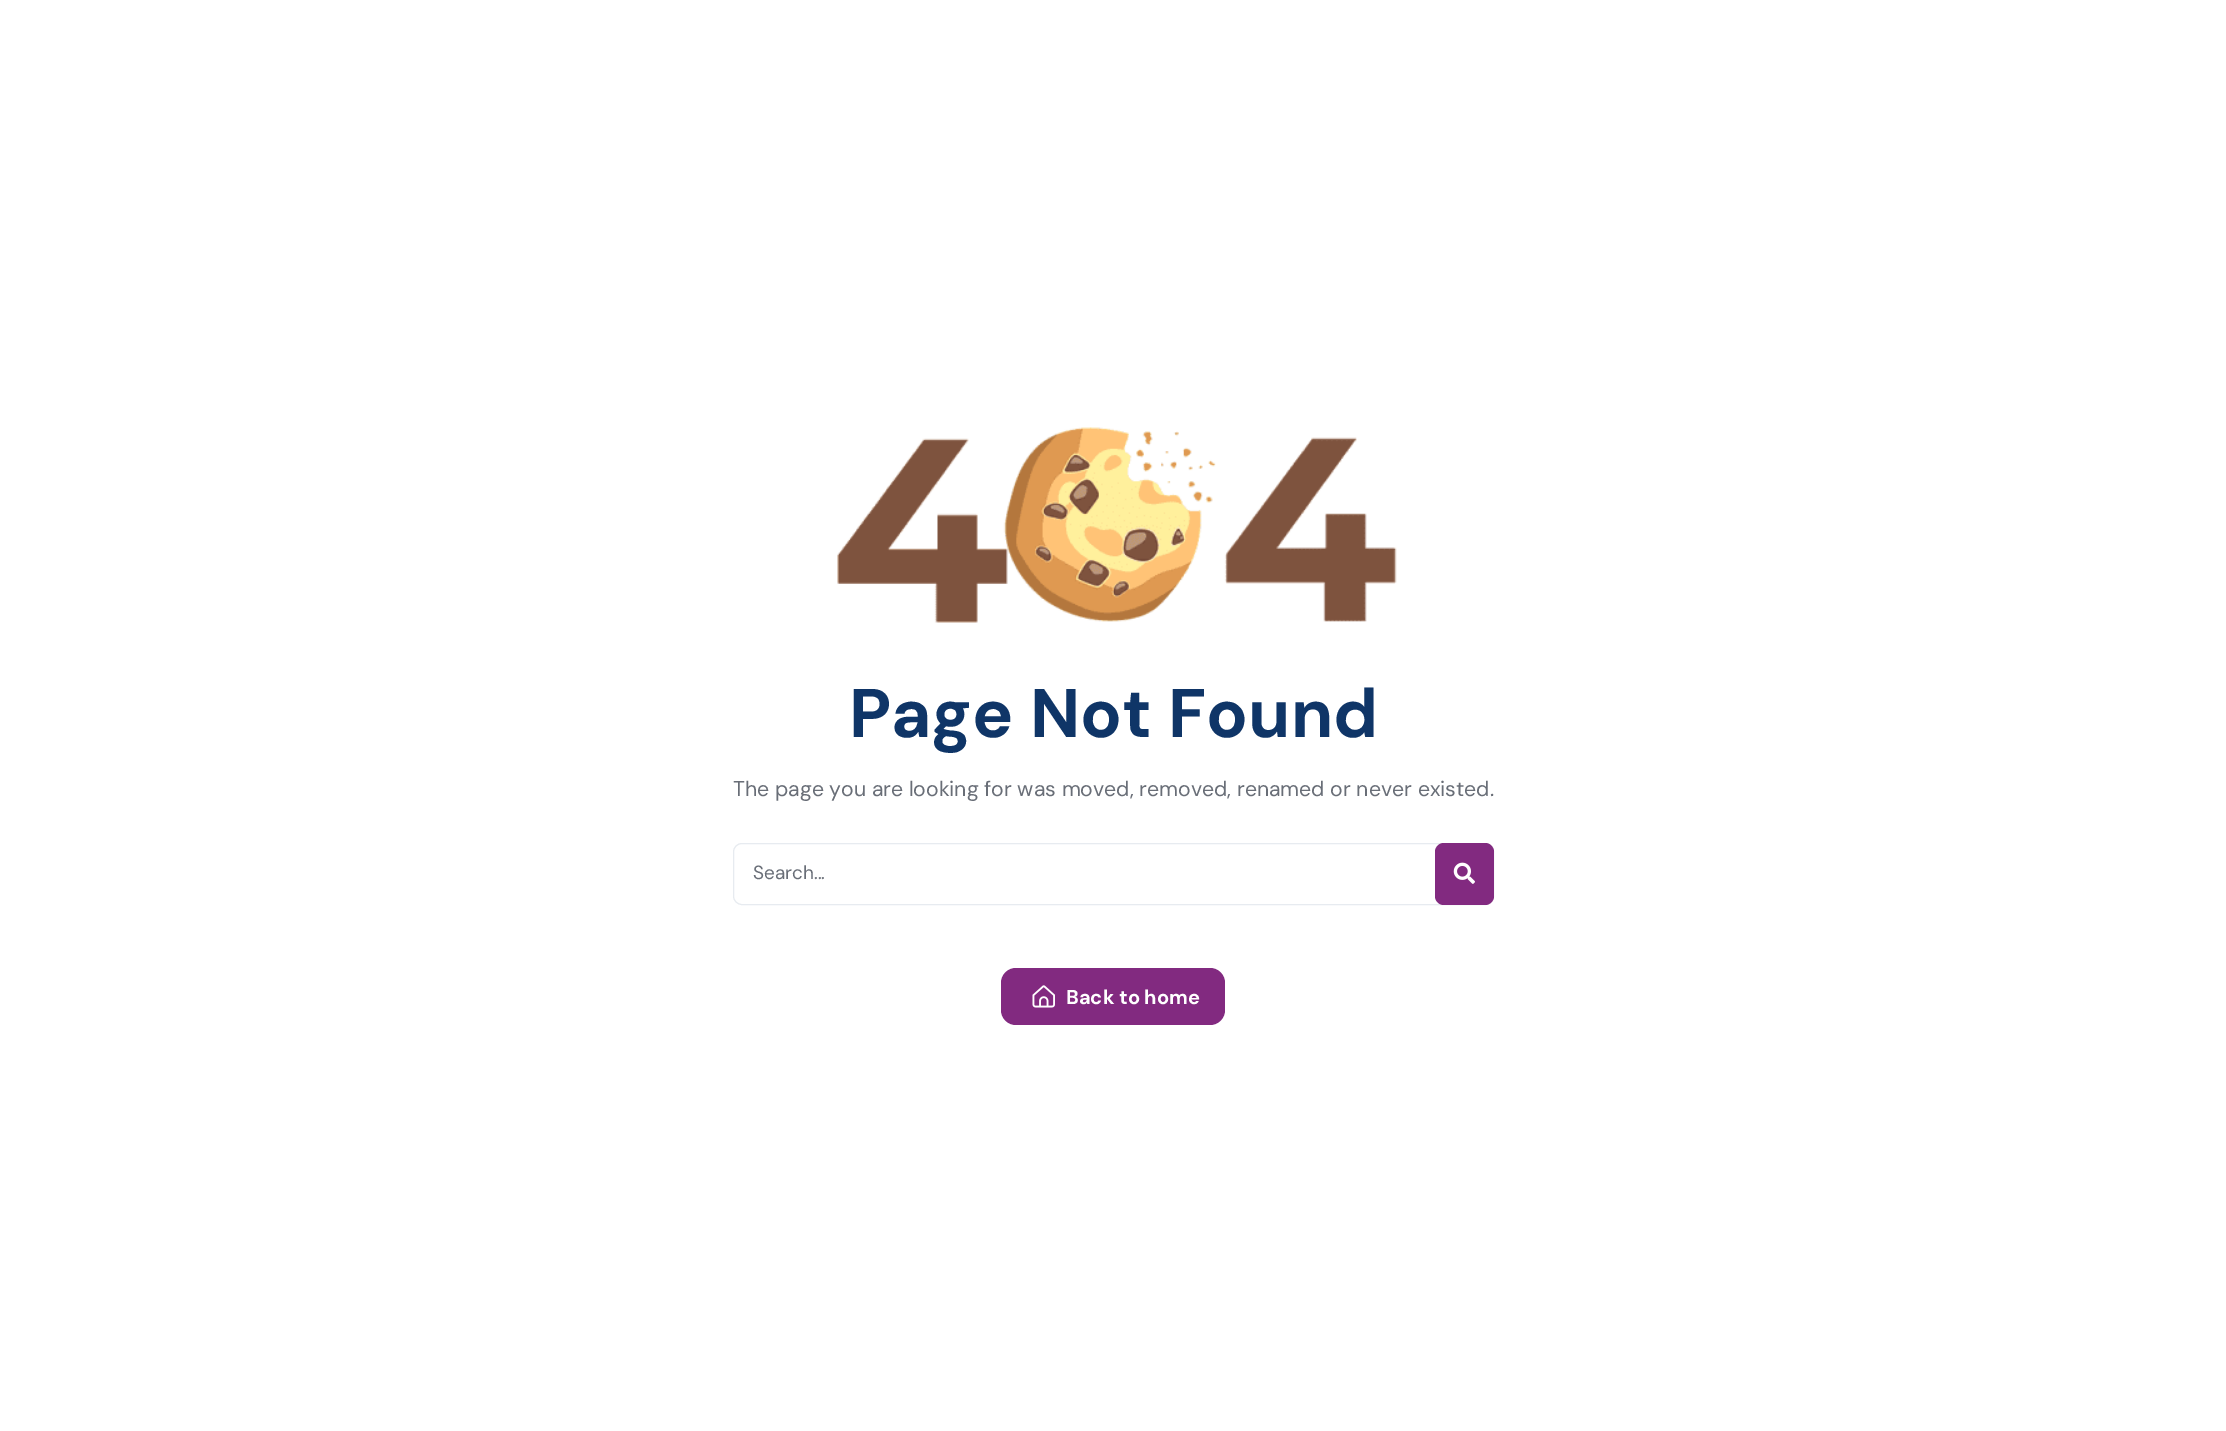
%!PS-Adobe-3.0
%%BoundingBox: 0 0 2226 1431
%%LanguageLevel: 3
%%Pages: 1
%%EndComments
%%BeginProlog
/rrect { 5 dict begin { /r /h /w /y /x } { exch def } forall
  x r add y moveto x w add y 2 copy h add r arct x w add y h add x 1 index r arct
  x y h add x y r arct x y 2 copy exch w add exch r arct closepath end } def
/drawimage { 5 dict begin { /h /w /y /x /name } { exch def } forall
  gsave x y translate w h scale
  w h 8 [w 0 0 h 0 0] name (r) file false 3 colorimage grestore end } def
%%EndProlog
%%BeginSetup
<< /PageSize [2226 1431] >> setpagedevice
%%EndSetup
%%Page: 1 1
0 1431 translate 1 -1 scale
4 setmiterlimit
1 setgray
0 0 2226 1431 rectfill
(images/1.raw) 837 427 560 196 drawimage
0.906 0.922 0.941 setrgbcolor
733.5 843.5 760 61 8.5 rrect stroke
0.51 0.165 0.502 setrgbcolor
1435 843 59 62 9 rrect fill
(images/2.raw) 1453 862 22 22 drawimage
1001 968 224 57 15 rrect fill
(images/3.raw) 1032 985 23 23 drawimage
/DMSans-Bold [68.75 0 0 -68.75 0 0] selectfont
0.059 0.208 0.404 setrgbcolor
849 737 moveto (Page Not Found) show
/DMSans-Regular [21.25 0 0 -21.25 0 0] selectfont
0.412 0.431 0.467 setrgbcolor
733 796 moveto (The page you are looking for was moved, removed, renamed or never existed.) show
/DMSans-Regular [19 0 0 -19 0 0] selectfont
753 879 moveto (Search...) show
/DMSans-Bold [20 0 0 -20 0 0] selectfont
1 setgray
1066 1004 moveto (Back to home) show
showpage
%%EOF
